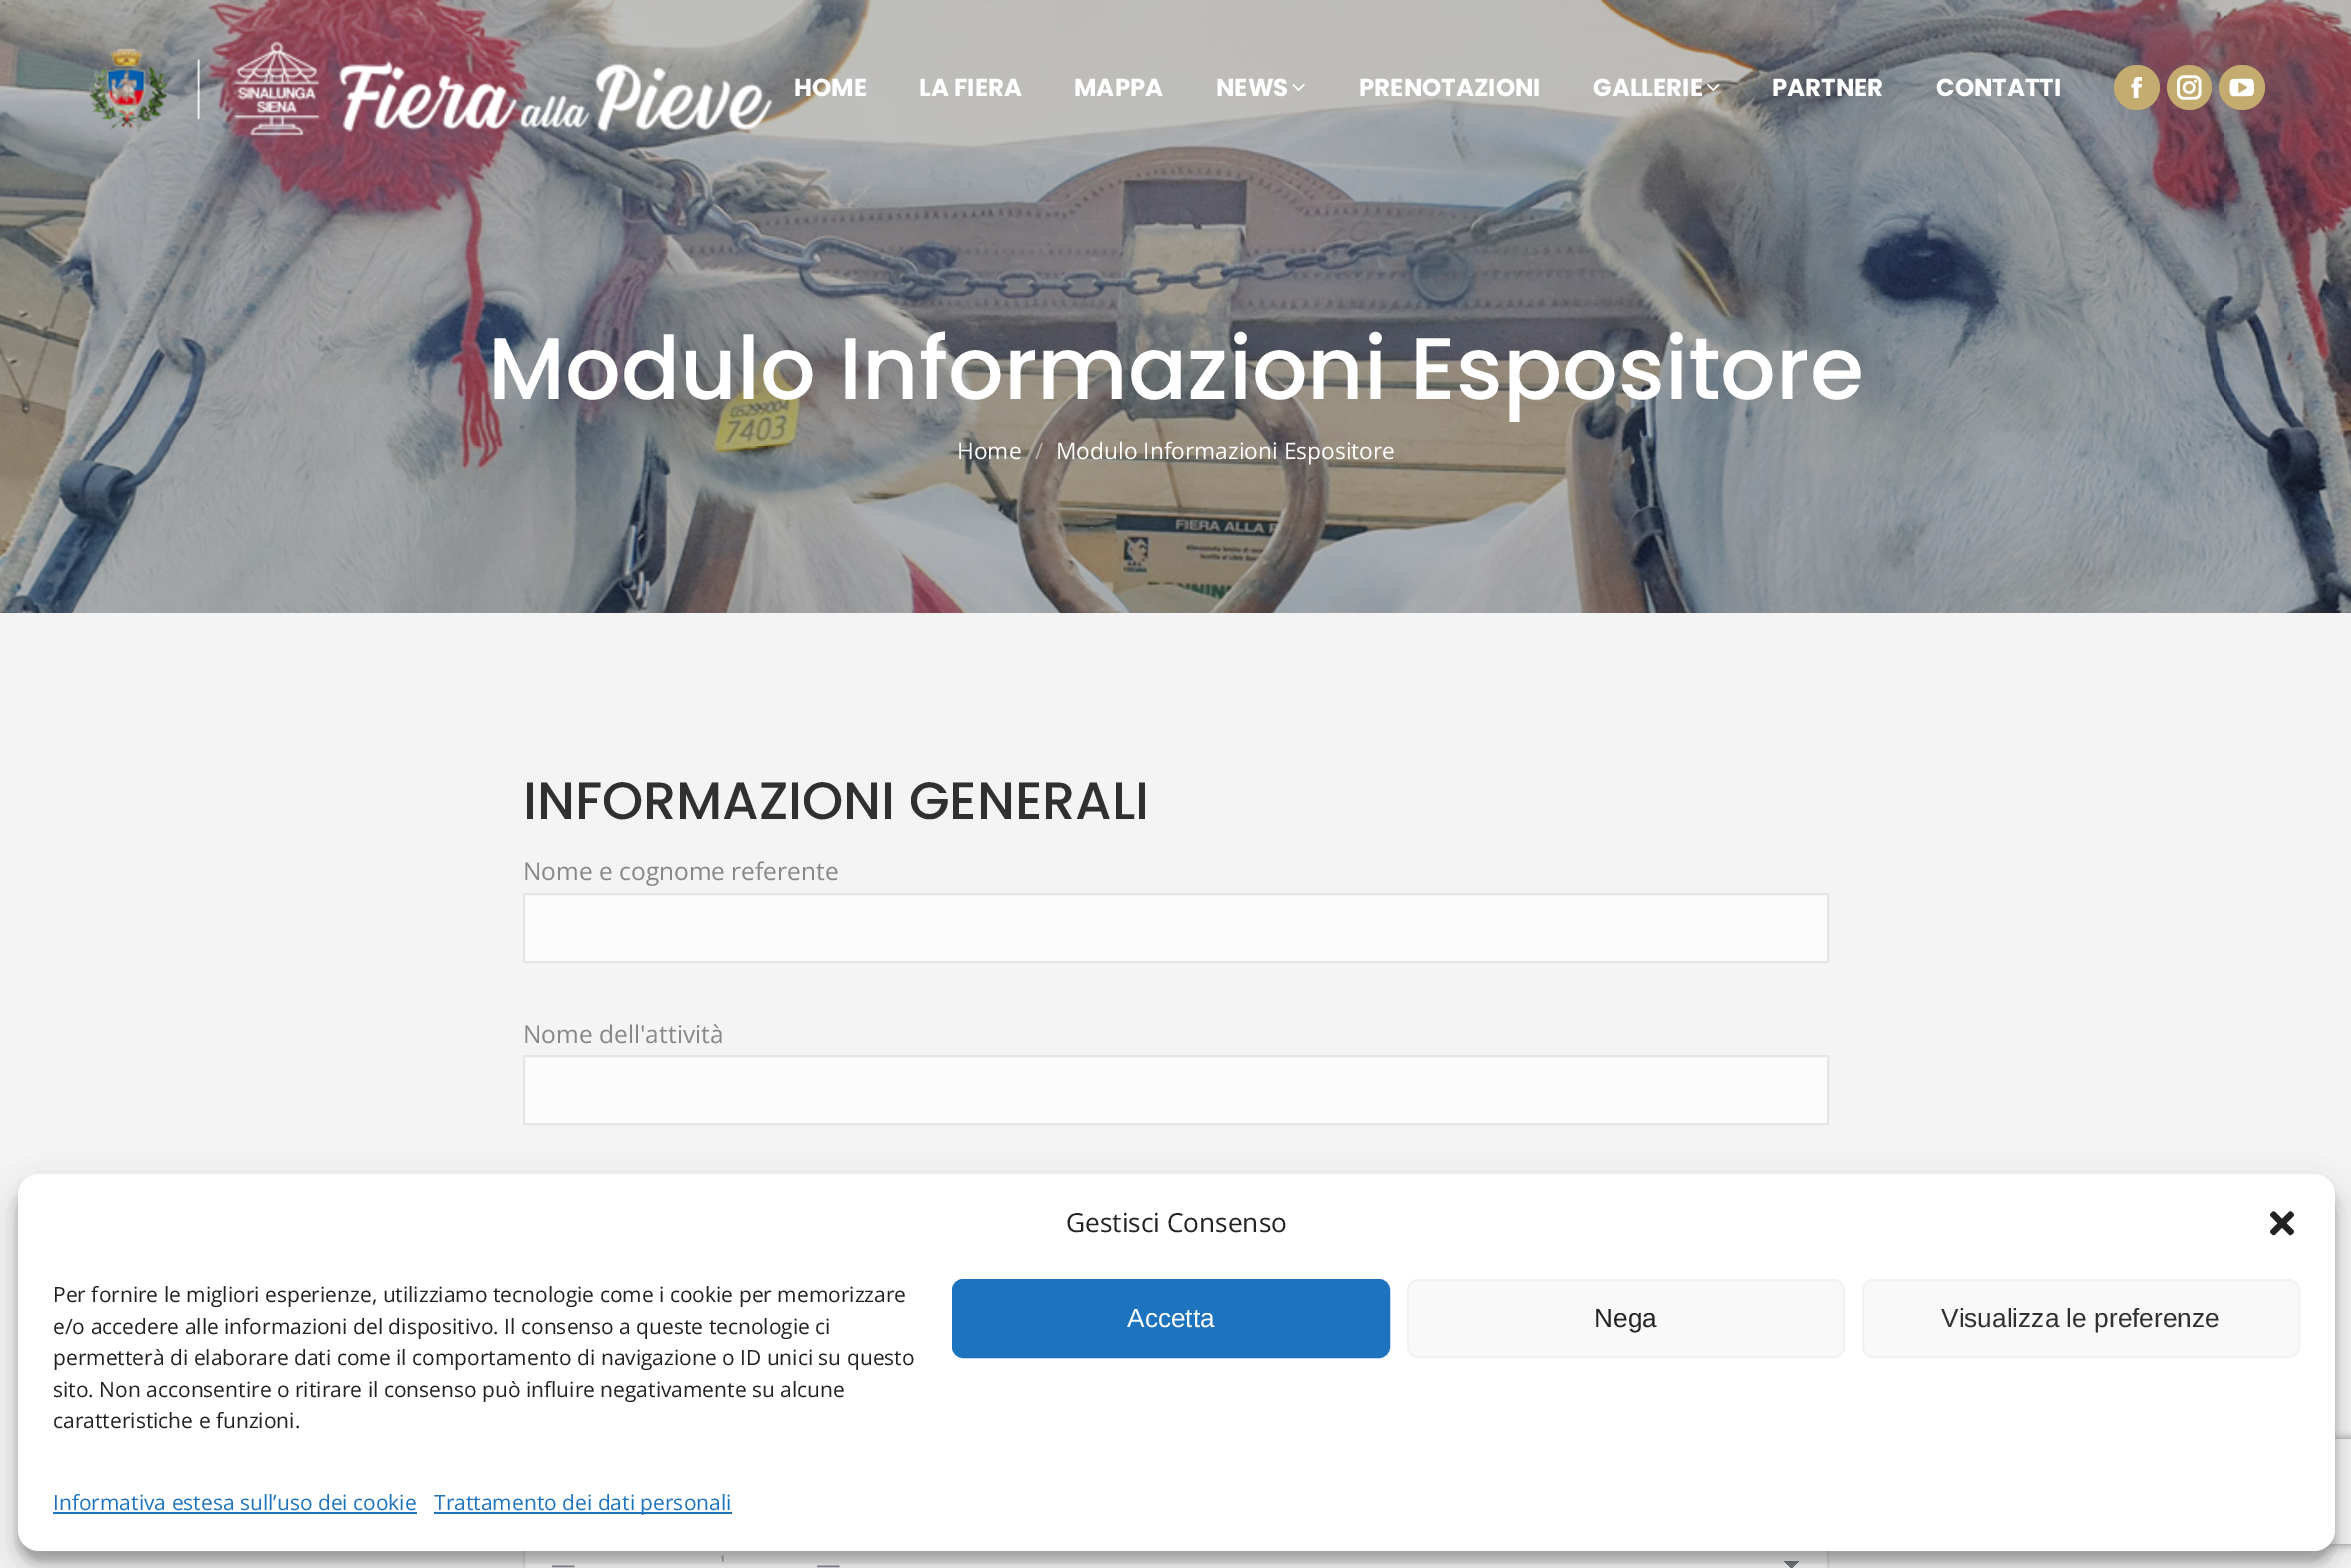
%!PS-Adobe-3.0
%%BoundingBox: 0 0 2351 1568
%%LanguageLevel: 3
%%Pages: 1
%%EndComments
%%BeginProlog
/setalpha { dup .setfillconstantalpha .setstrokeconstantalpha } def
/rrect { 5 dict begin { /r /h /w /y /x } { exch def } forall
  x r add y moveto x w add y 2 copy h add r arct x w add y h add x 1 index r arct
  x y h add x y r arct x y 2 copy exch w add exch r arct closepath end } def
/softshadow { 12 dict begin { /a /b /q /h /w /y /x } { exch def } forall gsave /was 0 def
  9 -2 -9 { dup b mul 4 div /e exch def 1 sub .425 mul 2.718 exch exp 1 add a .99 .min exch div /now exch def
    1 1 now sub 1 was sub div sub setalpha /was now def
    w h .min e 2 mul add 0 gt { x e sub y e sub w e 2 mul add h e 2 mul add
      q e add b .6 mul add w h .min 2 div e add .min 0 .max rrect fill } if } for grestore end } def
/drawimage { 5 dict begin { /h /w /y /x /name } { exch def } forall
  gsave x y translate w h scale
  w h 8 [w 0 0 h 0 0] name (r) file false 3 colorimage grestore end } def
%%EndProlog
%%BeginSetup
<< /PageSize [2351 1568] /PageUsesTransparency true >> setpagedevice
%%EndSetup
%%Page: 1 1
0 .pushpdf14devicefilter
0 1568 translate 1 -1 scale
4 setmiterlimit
1 setgray
0 0 2351 1568 rectfill
(images/7.raw) 0 0 2351 613 drawimage
(images/1.raw) 89 41 684 95 drawimage
(images/2.raw) 1292 84 13 7 drawimage
(images/3.raw) 1707 84 13 7 drawimage
0.769 0.675 0.439 setrgbcolor
2114 65 46 45 22.5 rrect fill
(images/4.raw) 2131 77 11 21 drawimage
newpath 2189.5 87.5 22.5 0 360 arc closepath fill
(images/5.raw) 2177 75 25 25 drawimage
2219 65 46 45 22.5 rrect fill
(images/6.raw) 2229 78 25 19 drawimage
0.957 setgray
0 613 2351 955 rectfill
0.988 setgray
newpath 524 894 moveto 1828 894 lineto 1828 962 lineto 524 962 lineto closepath gsave fill grestore
0.894 0.898 0.906 setrgbcolor
2 setlinewidth
stroke
0.988 setgray
newpath 524 1056 moveto 1828 1056 lineto 1828 1124 lineto 524 1124 lineto closepath gsave fill grestore
0.894 0.898 0.906 setrgbcolor
stroke
0.988 setgray
525 1551 1302 17 rectfill
gsave newpath 1792 1561 moveto 1801 1561 lineto 1801 1568 lineto 1792 1568 lineto closepath clip newpath
<< /ShadingType 2 /ColorSpace /DeviceRGB /Coords [1792 1560 1801 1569] /Extend [true true] /Function << /FunctionType 3 /Domain [0 1] /Functions [<< /FunctionType 2 /Domain [0 1] /C0 [0.471 0.49 0.522] /C1 [0.471 0.49 0.522] /N 1 >> << /FunctionType 2 /Domain [0 1] /C0 [0.988 0.988 0.988] /C1 [0.988 0.988 0.988] /N 1 >>] /Bounds [0.5] /Encode [0 1 0 1] >> >> shfill grestore
gsave newpath 1783 1561 moveto 1792 1561 lineto 1792 1568 lineto 1783 1568 lineto closepath clip newpath
<< /ShadingType 2 /ColorSpace /DeviceRGB /Coords [1783 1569 1792 1560] /Extend [true true] /Function << /FunctionType 3 /Domain [0 1] /Functions [<< /FunctionType 2 /Domain [0 1] /C0 [0.988 0.988 0.988] /C1 [0.988 0.988 0.988] /N 1 >> << /FunctionType 2 /Domain [0 1] /C0 [0.471 0.49 0.522] /C1 [0.471 0.49 0.522] /N 1 >>] /Bounds [0.5] /Encode [0 1 0 1] >> >> shfill grestore
0.894 0.898 0.906 setrgbcolor
524 1531 1304 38 rectstroke
0 setgray
18 1185 2317 376 21 5 0.23 softshadow
18 1192 2317 376 21 17.5 0.19 softshadow
gsave
newpath 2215 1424 moveto 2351 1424 lineto 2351 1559 lineto 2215 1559 lineto closepath 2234 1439 moveto 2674 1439 lineto 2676 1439 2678 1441 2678 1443 curveto 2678 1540 lineto 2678 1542 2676 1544 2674 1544 curveto 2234 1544 lineto 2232 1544 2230 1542 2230 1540 curveto 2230 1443 lineto 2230 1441 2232 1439 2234 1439 curveto closepath eoclip newpath
0.502 setgray
2230 1439 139 105 4 4.5 1 softshadow
grestore
1 setgray
18 1174 2317 377 21 rrect fill
(images/8.raw) 2270 1211 24 25 drawimage
0.118 0.451 0.745 setrgbcolor
953 1280 436 77 10 rrect gsave fill grestore
stroke
0.976 setgray
1408 1280 436 77 10 rrect gsave fill grestore
0.949 setgray
stroke
0.976 setgray
1863 1280 436 77 10 rrect gsave fill grestore
0.949 setgray
stroke
0.118 0.451 0.745 setrgbcolor
53 1512 364 2 rectfill
434 1512 298 2 rectfill
/Poppins-Bold [24.5 0 0 -24.5 0 0] selectfont
1 setgray
794 96 moveto (HOME) show
919 96 moveto (LA FIERA) show
1074 96 moveto (MAPPA) show
1216 96 moveto (NEWS) show
1359 96 moveto (PRENOTAZIONI) show
1593 96 moveto (GALLERIE) show
1772 96 moveto (PARTNER) show
1936 96 moveto (CONTATTI) show
/Poppins-Medium [87.5 0 0 -87.5 0 0] selectfont
488 399 moveto (Modulo Informazioni Espositore) show
/OpenSans-Regular [22.75 0 0 -22.75 0 0] selectfont
957 459 moveto (Home) show
0.725 0.702 0.686 setrgbcolor
1035 459 moveto (/) show
1 setgray
1056 459 moveto (Modulo Informazioni Espositore) show
/Poppins-Medium [52.5 0 0 -52.5 0 0] selectfont
0.188 setgray
523 819 moveto (INFORMAZIONI GENERALI) show
/OpenSans-Regular [24.5 0 0 -24.5 0 0] selectfont
0.529 setgray
523 880 moveto (Nome e cognome referente) show
523 1043 moveto (Nome dell'attività) show
0.471 0.49 0.522 setrgbcolor
720 1573 moveto (') show
551 1573 moveto (—) show
816 1573 moveto (—) show
/OpenSans-Regular [26.25 0 0 -26.25 0 0] selectfont
0.133 setgray
1066 1232 moveto (Gestisci Consenso) show
/OpenSans-Regular [21 0 0 -21 0 0] selectfont
53 1302 moveto (Per fornire le migliori esperienze, utilizziamo tecnologie come i cookie per memorizzare) show
53 1334 moveto (e/o accedere alle informazioni del dispositivo. Il consenso a queste tecnologie ci) show
53 1365 moveto (permetterà di elaborare dati come il comportamento di navigazione o ID unici su questo) show
53 1397 moveto (sito. Non acconsentire o ritirare il consenso può influire negativamente su alcune) show
53 1428 moveto (caratteristiche e funzioni.) show
/LiberationSans-Regular [26.25 0 0 -26.25 0 0] selectfont
1 setgray
1127 1327 moveto (Accetta) show
0.133 setgray
1594 1327 moveto (Nega) show
0.188 setgray
1941 1327 moveto (Visualizza le preferenze) show
/OpenSans-Regular [21 0 0 -21 0 0] selectfont
0.118 0.451 0.745 setrgbcolor
53 1510 moveto (Informativa estesa sull’uso dei cookie) show
434 1510 moveto (Trattamento dei dati personali) show
.poppdf14devicefilter showpage
%%EOF
